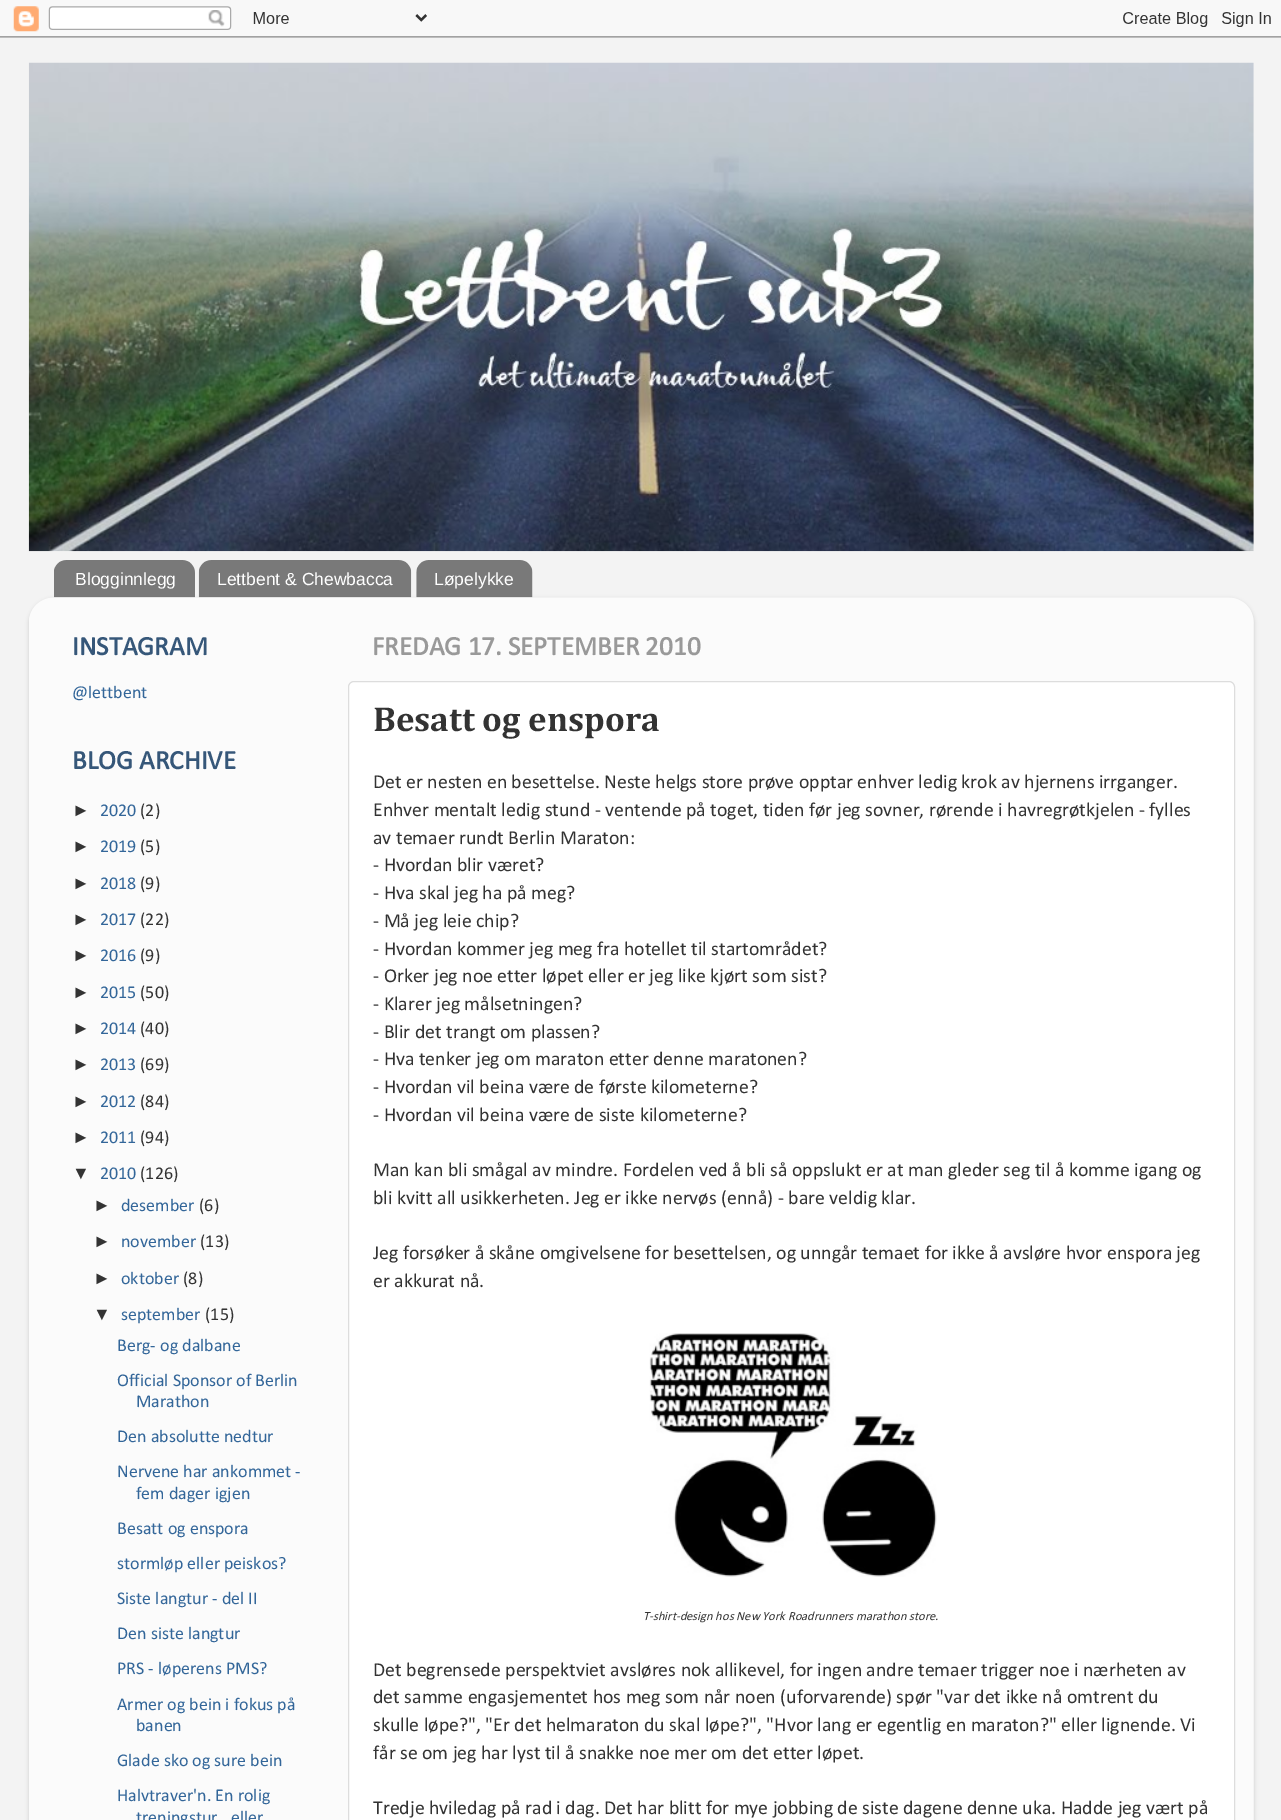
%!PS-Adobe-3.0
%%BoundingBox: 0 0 1281 1820
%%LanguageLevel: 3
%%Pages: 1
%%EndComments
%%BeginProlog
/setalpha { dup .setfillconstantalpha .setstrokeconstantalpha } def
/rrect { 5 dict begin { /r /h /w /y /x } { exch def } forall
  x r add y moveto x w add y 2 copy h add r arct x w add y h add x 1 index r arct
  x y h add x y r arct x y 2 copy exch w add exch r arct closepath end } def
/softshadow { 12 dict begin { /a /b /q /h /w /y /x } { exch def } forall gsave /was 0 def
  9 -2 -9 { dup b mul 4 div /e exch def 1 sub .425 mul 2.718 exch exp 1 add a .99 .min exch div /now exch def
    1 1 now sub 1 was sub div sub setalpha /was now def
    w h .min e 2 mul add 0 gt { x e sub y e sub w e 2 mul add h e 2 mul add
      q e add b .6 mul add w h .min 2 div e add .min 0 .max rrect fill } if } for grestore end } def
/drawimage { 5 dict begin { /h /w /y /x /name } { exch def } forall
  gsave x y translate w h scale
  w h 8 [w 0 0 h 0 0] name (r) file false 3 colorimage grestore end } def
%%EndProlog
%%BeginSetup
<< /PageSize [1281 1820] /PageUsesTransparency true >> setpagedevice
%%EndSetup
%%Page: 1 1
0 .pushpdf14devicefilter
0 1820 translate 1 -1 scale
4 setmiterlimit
0.953 setgray
0 0 1281 1820 rectfill
(images/1.raw) 0 0 1281 38 drawimage
(images/2.raw) 28 62 1226 490 drawimage
(images/3.raw) 54 560 141 38 drawimage
(images/4.raw) 198 560 214 38 drawimage
(images/5.raw) 416 560 117 38 drawimage
gsave
newpath 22 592 moveto 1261 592 lineto 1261 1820 lineto 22 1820 lineto closepath 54 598 moveto 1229 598 lineto 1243 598 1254 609 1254 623 curveto 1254 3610 lineto 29 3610 lineto 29 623 lineto 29 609 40 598 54 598 curveto closepath eoclip newpath
0 setgray
29 599 1225 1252 25 2 0.15 softshadow
grestore
(images/6.raw) 29 597 1225 1223 drawimage
1 setgray
348.5 681.5 886 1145 5.5 rrect gsave fill grestore
0.867 setgray
stroke
(images/7.raw) 649 1333 288 244 drawimage
/LiberationSans-Regular [17.5 0 0 -17.5 0 0] selectfont
1 setgray
75 585 moveto (Blogginnlegg) show
217 585 moveto (Lettbent & Chewbacca) show
434 585 moveto (Løpelykke) show
/Calibri-Bold [27 0 0 -27 0 0] selectfont
0.212 0.341 0.475 setrgbcolor
72 655 moveto (INSTAGRAM) show
/Calibri-Regular [18 0 0 -18 0 0] selectfont
0.2 0.4 0.6 setrgbcolor
72 698 moveto (@lettbent) show
/Calibri-Bold [27 0 0 -27 0 0] selectfont
0.212 0.341 0.475 setrgbcolor
72 769 moveto (BLOG ARCHIVE) show
/LiberationSans-Regular [18 0 0 -18 0 0] selectfont
0.2 setgray
72 816 moveto (►) show
/Calibri-Regular [18 0 0 -18 0 0] selectfont
0.2 0.4 0.6 setrgbcolor
100 816 moveto (2020) show
0.2 setgray
140 816 moveto (\(2\)) show
/LiberationSans-Regular [18 0 0 -18 0 0] selectfont
72 852 moveto (►) show
/Calibri-Regular [18 0 0 -18 0 0] selectfont
0.2 0.4 0.6 setrgbcolor
100 852 moveto (2019) show
0.2 setgray
140 852 moveto (\(5\)) show
/LiberationSans-Regular [18 0 0 -18 0 0] selectfont
72 889 moveto (►) show
/Calibri-Regular [18 0 0 -18 0 0] selectfont
0.2 0.4 0.6 setrgbcolor
100 889 moveto (2018) show
0.2 setgray
140 889 moveto (\(9\)) show
/LiberationSans-Regular [18 0 0 -18 0 0] selectfont
72 925 moveto (►) show
/Calibri-Regular [18 0 0 -18 0 0] selectfont
0.2 0.4 0.6 setrgbcolor
100 925 moveto (2017) show
0.2 setgray
140 925 moveto (\(22\)) show
/LiberationSans-Regular [18 0 0 -18 0 0] selectfont
72 961 moveto (►) show
/Calibri-Regular [18 0 0 -18 0 0] selectfont
0.2 0.4 0.6 setrgbcolor
100 961 moveto (2016) show
0.2 setgray
140 961 moveto (\(9\)) show
/LiberationSans-Regular [18 0 0 -18 0 0] selectfont
72 998 moveto (►) show
/Calibri-Regular [18 0 0 -18 0 0] selectfont
0.2 0.4 0.6 setrgbcolor
100 998 moveto (2015) show
0.2 setgray
140 998 moveto (\(50\)) show
/LiberationSans-Regular [18 0 0 -18 0 0] selectfont
72 1034 moveto (►) show
/Calibri-Regular [18 0 0 -18 0 0] selectfont
0.2 0.4 0.6 setrgbcolor
100 1034 moveto (2014) show
0.2 setgray
140 1034 moveto (\(40\)) show
/LiberationSans-Regular [18 0 0 -18 0 0] selectfont
72 1070 moveto (►) show
/Calibri-Regular [18 0 0 -18 0 0] selectfont
0.2 0.4 0.6 setrgbcolor
100 1070 moveto (2013) show
0.2 setgray
140 1070 moveto (\(69\)) show
/LiberationSans-Regular [18 0 0 -18 0 0] selectfont
72 1107 moveto (►) show
/Calibri-Regular [18 0 0 -18 0 0] selectfont
0.2 0.4 0.6 setrgbcolor
100 1107 moveto (2012) show
0.2 setgray
140 1107 moveto (\(84\)) show
/LiberationSans-Regular [18 0 0 -18 0 0] selectfont
72 1143 moveto (►) show
/Calibri-Regular [18 0 0 -18 0 0] selectfont
0.2 0.4 0.6 setrgbcolor
100 1143 moveto (2011) show
0.2 setgray
140 1143 moveto (\(94\)) show
/LiberationSans-Regular [18 0 0 -18 0 0] selectfont
72 1179 moveto (▼) show
/Calibri-Regular [18 0 0 -18 0 0] selectfont
0.2 0.4 0.6 setrgbcolor
100 1179 moveto (2010) show
0.2 setgray
140 1179 moveto (\(126\)) show
/LiberationSans-Regular [18 0 0 -18 0 0] selectfont
93 1211 moveto (►) show
/Calibri-Regular [18 0 0 -18 0 0] selectfont
0.2 0.4 0.6 setrgbcolor
121 1211 moveto (desember) show
0.2 setgray
199 1211 moveto (\(6\)) show
/LiberationSans-Regular [18 0 0 -18 0 0] selectfont
93 1247 moveto (►) show
/Calibri-Regular [18 0 0 -18 0 0] selectfont
0.2 0.4 0.6 setrgbcolor
121 1247 moveto (november) show
0.2 setgray
200 1247 moveto (\(13\)) show
/LiberationSans-Regular [18 0 0 -18 0 0] selectfont
93 1284 moveto (►) show
/Calibri-Regular [18 0 0 -18 0 0] selectfont
0.2 0.4 0.6 setrgbcolor
121 1284 moveto (oktober) show
0.2 setgray
183 1284 moveto (\(8\)) show
/LiberationSans-Regular [18 0 0 -18 0 0] selectfont
93 1320 moveto (▼) show
/Calibri-Regular [18 0 0 -18 0 0] selectfont
0.2 0.4 0.6 setrgbcolor
121 1320 moveto (september) show
0.2 setgray
205 1320 moveto (\(15\)) show
0.2 0.4 0.6 setrgbcolor
117 1351 moveto (Berg- og dalbane) show
117 1386 moveto (Official Sponsor of Berlin) show
136 1407 moveto (Marathon) show
117 1442 moveto (Den absolutte nedtur) show
117 1477 moveto (Nervene har ankommet -) show
136 1499 moveto (fem dager igjen) show
117 1534 moveto (Besatt og enspora) show
117 1569 moveto (stormløp eller peiskos?) show
117 1604 moveto (Siste langtur - del II) show
117 1639 moveto (Den siste langtur) show
117 1674 moveto (PRS - løperens PMS?) show
117 1710 moveto (Armer og bein i fokus på) show
136 1731 moveto (banen) show
117 1766 moveto (Glade sko og sure bein) show
117 1801 moveto (Halvtraver'n. En rolig) show
136 1823 moveto (treningstur) show
231 1823 moveto (eller) show
/Calibri-Bold [27 0 0 -27 0 0] selectfont
0.6 setgray
372 655 moveto (FREDAG 17. SEPTEMBER 2010) show
/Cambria-Bold [35 0 0 -35 0 0] selectfont
0.2 setgray
373 731 moveto (Besatt og enspora) show
/Calibri-Regular [19.8 0 0 -19.8 0 0] selectfont
373 788 moveto (Det er nesten en besettelse. Neste helgs store prøve opptar enhver ledig krok av hjernens irrganger.) show
373 816 moveto (Enhver mentalt ledig stund - ventende på toget, tiden før jeg sovner, rørende i havregrøtkjelen - fylles) show
373 844 moveto (av temaer rundt Berlin Maraton:) show
373 871 moveto (- Hvordan blir været?) show
373 899 moveto (- Hva skal jeg ha på meg?) show
373 927 moveto (- Må jeg leie chip?) show
373 955 moveto (- Hvordan kommer jeg meg fra hotellet til startområdet?) show
373 982 moveto (- Orker jeg noe etter løpet eller er jeg like kjørt som sist?) show
373 1010 moveto (- Klarer jeg målsetningen?) show
373 1038 moveto (- Blir det trangt om plassen?) show
373 1065 moveto (- Hva tenker jeg om maraton etter denne maratonen?) show
373 1093 moveto (- Hvordan vil beina være de første kilometerne?) show
373 1121 moveto (- Hvordan vil beina være de siste kilometerne?) show
373 1176 moveto (Man kan bli smågal av mindre. Fordelen ved å bli så oppslukt er at man gleder seg til å komme igang og) show
373 1204 moveto (bli kvitt all usikkerheten. Jeg er ikke nervøs \(ennå\) - bare veldig klar.) show
373 1259 moveto (Jeg forsøker å skåne omgivelsene for besettelsen, og unngår temaet for ikke å avsløre hvor enspora jeg) show
373 1287 moveto (er akkurat nå.) show
/Calibri-Italic [12.5 0 0 -12.5 0 0] selectfont
643 1620 moveto (T-shirt-design hos New York Roadrunners marathon store.) show
/Calibri-Regular [19.8 0 0 -19.8 0 0] selectfont
373 1676 moveto (Det begrensede perspektviet avsløres nok allikevel, for ingen andre temaer trigger noe i nærheten av) show
373 1703 moveto (det samme engasjementet hos meg som når noen \(uforvarende\) spør "var det ikke nå omtrent du) show
373 1731 moveto (skulle løpe?", "Er det helmaraton du skal løpe?", "Hvor lang er egentlig en maraton?" eller lignende. Vi) show
373 1759 moveto (får se om jeg har lyst til å snakke noe mer om det etter løpet.) show
373 1814 moveto (Tredje hviledag på rad i dag. Det har blitt for mye jobbing de siste dagene denne uka. Hadde jeg vært på) show
.poppdf14devicefilter showpage
%%EOF
